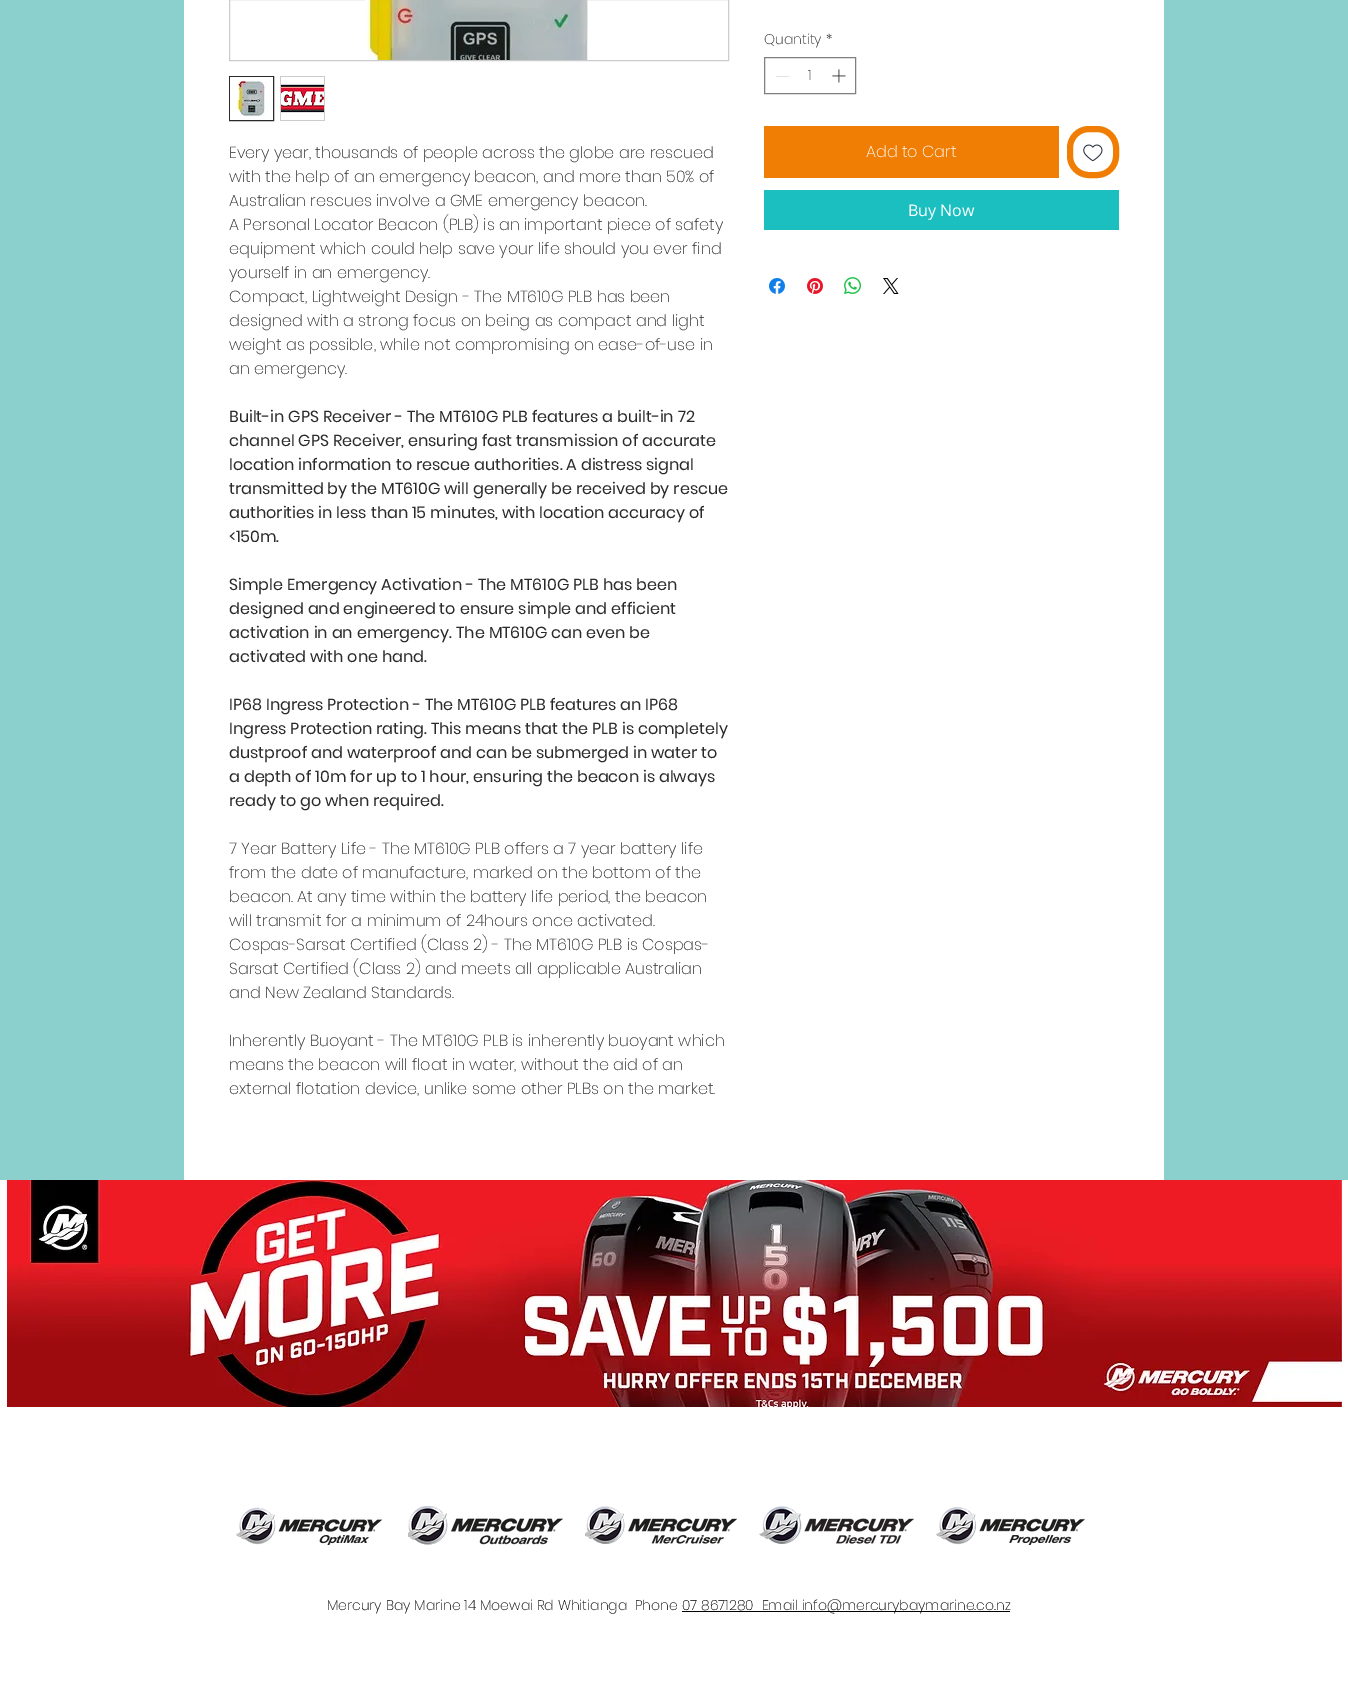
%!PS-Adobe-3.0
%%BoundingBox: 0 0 1348 1686
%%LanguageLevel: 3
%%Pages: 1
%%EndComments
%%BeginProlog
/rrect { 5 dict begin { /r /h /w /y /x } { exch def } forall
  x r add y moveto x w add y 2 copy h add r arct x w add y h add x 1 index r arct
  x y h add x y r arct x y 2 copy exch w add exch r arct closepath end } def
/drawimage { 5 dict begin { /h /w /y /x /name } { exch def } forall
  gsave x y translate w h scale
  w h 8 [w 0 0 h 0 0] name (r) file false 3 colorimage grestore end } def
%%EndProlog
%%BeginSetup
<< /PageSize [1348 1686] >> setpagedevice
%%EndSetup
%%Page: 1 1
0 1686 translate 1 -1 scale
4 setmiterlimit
0.545 0.816 0.804 setrgbcolor
0 0 1348 1686 rectfill
1 setgray
184 0 980 1180 rectfill
0.498 setgray
764.5 57.5 91 36 rectstroke
0.89 setgray
776 76 13 1 rectfill
(images/1.raw) 832 69 14 14 drawimage
0.941 0.494 0.02 setrgbcolor
764 126 295 52 rectfill
6 setlinewidth
1070 129 46 46 19 rrect stroke
(images/2.raw) 1083 144 20 18 drawimage
0.106 0.749 0.749 setrgbcolor
764 190 355 40 rectfill
(images/3.raw) 769 278 16 16 drawimage
(images/4.raw) 807 278 16 16 drawimage
(images/5.raw) 844 277 17 17 drawimage
(images/6.raw) 883 278 16 16 drawimage
0.8 setgray
1 setlinewidth
229.5 -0.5 499 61 rectstroke
(images/7.raw) 365 0 223 60 drawimage
0.165 setgray
229.5 76.5 44 44 rectstroke
(images/8.raw) 230 77 43 43 drawimage
0.8 setgray
280 76 45 45 rectfill
(images/9.raw) 281 77 43 43 drawimage
1 setgray
0 1180 1348 506 rectfill
(images/10.raw) 7 1180 1335 227 drawimage
(images/11.raw) 236 1507 147 38 drawimage
(images/12.raw) 408 1506 155 39 drawimage
(images/13.raw) 585 1506 152 38 drawimage
(images/14.raw) 759 1506 155 38 drawimage
(images/15.raw) 936 1507 149 38 drawimage
0 setgray
682 1611 328 1 rectfill
/Poppins-ExtraLight [14 0 0 -14 0 0] selectfont
0.165 setgray
764 44 moveto (Quantity *) show
808 80 moveto (1) show
/Poppins-ExtraLight [16 0 0 -16 0 0] selectfont
1 setgray
866 157 moveto (Add to Cart) show
/OpenSans-Regular [16 0 0 -16 0 0] selectfont
908 216 moveto (Buy Now) show
/Poppins-ExtraLight [16 0 0 -16 0 0] selectfont
0.165 setgray
229 158 moveto (Every year, thousands of people across the globe are rescued) show
229 182 moveto (with the help of an emergency beacon, and more than 50% of) show
229 206 moveto (Australian rescues involve a GME emergency beacon.) show
229 230 moveto (A Personal Locator Beacon \(PLB\) is an important piece of safety) show
229 254 moveto (equipment which could help save your life should you ever find) show
229 278 moveto (yourself in an emergency.) show
229 302 moveto (Compact, Lightweight Design - The MT610G PLB has been) show
229 326 moveto (designed with a strong focus on being as compact and light) show
229 350 moveto (weight as possible, while not compromising on ease-of-use in) show
229 374 moveto (an emergency.) show
/Poppins-Regular [16 0 0 -16 0 0] selectfont
229 422 moveto (Built-in GPS Receiver - The MT610G PLB features a built-in 72) show
229 446 moveto (channel GPS Receiver, ensuring fast transmission of accurate) show
229 470 moveto (location information to rescue authorities. A distress signal) show
229 494 moveto (transmitted by the MT610G will generally be received by rescue) show
229 518 moveto (authorities in less than 15 minutes, with location accuracy of) show
229 542 moveto (<150m.) show
229 590 moveto (Simple Emergency Activation - The MT610G PLB has been) show
229 614 moveto (designed and engineered to ensure simple and efficient) show
229 638 moveto (activation in an emergency. The MT610G can even be) show
229 662 moveto (activated with one hand.) show
229 710 moveto (IP68 Ingress Protection - The MT610G PLB features an IP68) show
229 734 moveto (Ingress Protection rating. This means that the PLB is completely) show
229 758 moveto (dustproof and waterproof and can be submerged in water to) show
229 782 moveto (a depth of 10m for up to 1 hour, ensuring the beacon is always) show
229 806 moveto (ready to go when required.) show
/Poppins-ExtraLight [16 0 0 -16 0 0] selectfont
229 854 moveto (7 Year Battery Life - The MT610G PLB offers a 7 year battery life) show
229 878 moveto (from the date of manufacture, marked on the bottom of the) show
229 902 moveto (beacon. At any time within the battery life period, the beacon) show
229 926 moveto (will transmit for a minimum of 24hours once activated.) show
229 950 moveto (Cospas-Sarsat Certified \(Class 2\) - The MT610G PLB is Cospas-) show
229 974 moveto (Sarsat Certified \(Class 2\) and meets all applicable Australian) show
229 998 moveto (and New Zealand Standards.) show
229 1046 moveto (Inherently Buoyant - The MT610G PLB is inherently buoyant which) show
229 1070 moveto (means the beacon will float in water, without the aid of an) show
229 1094 moveto (external flotation device, unlike some other PLBs on the market.) show
/Poppins-ExtraLight [14 0 0 -14 0 0] selectfont
0 setgray
327 1610 moveto (Mercury Bay Marine 14 Moewai Rd Whitianga  Phone) show
682 1610 moveto (07 8671280  Email info@mercurybaymarine.co.nz) show
showpage
%%EOF
